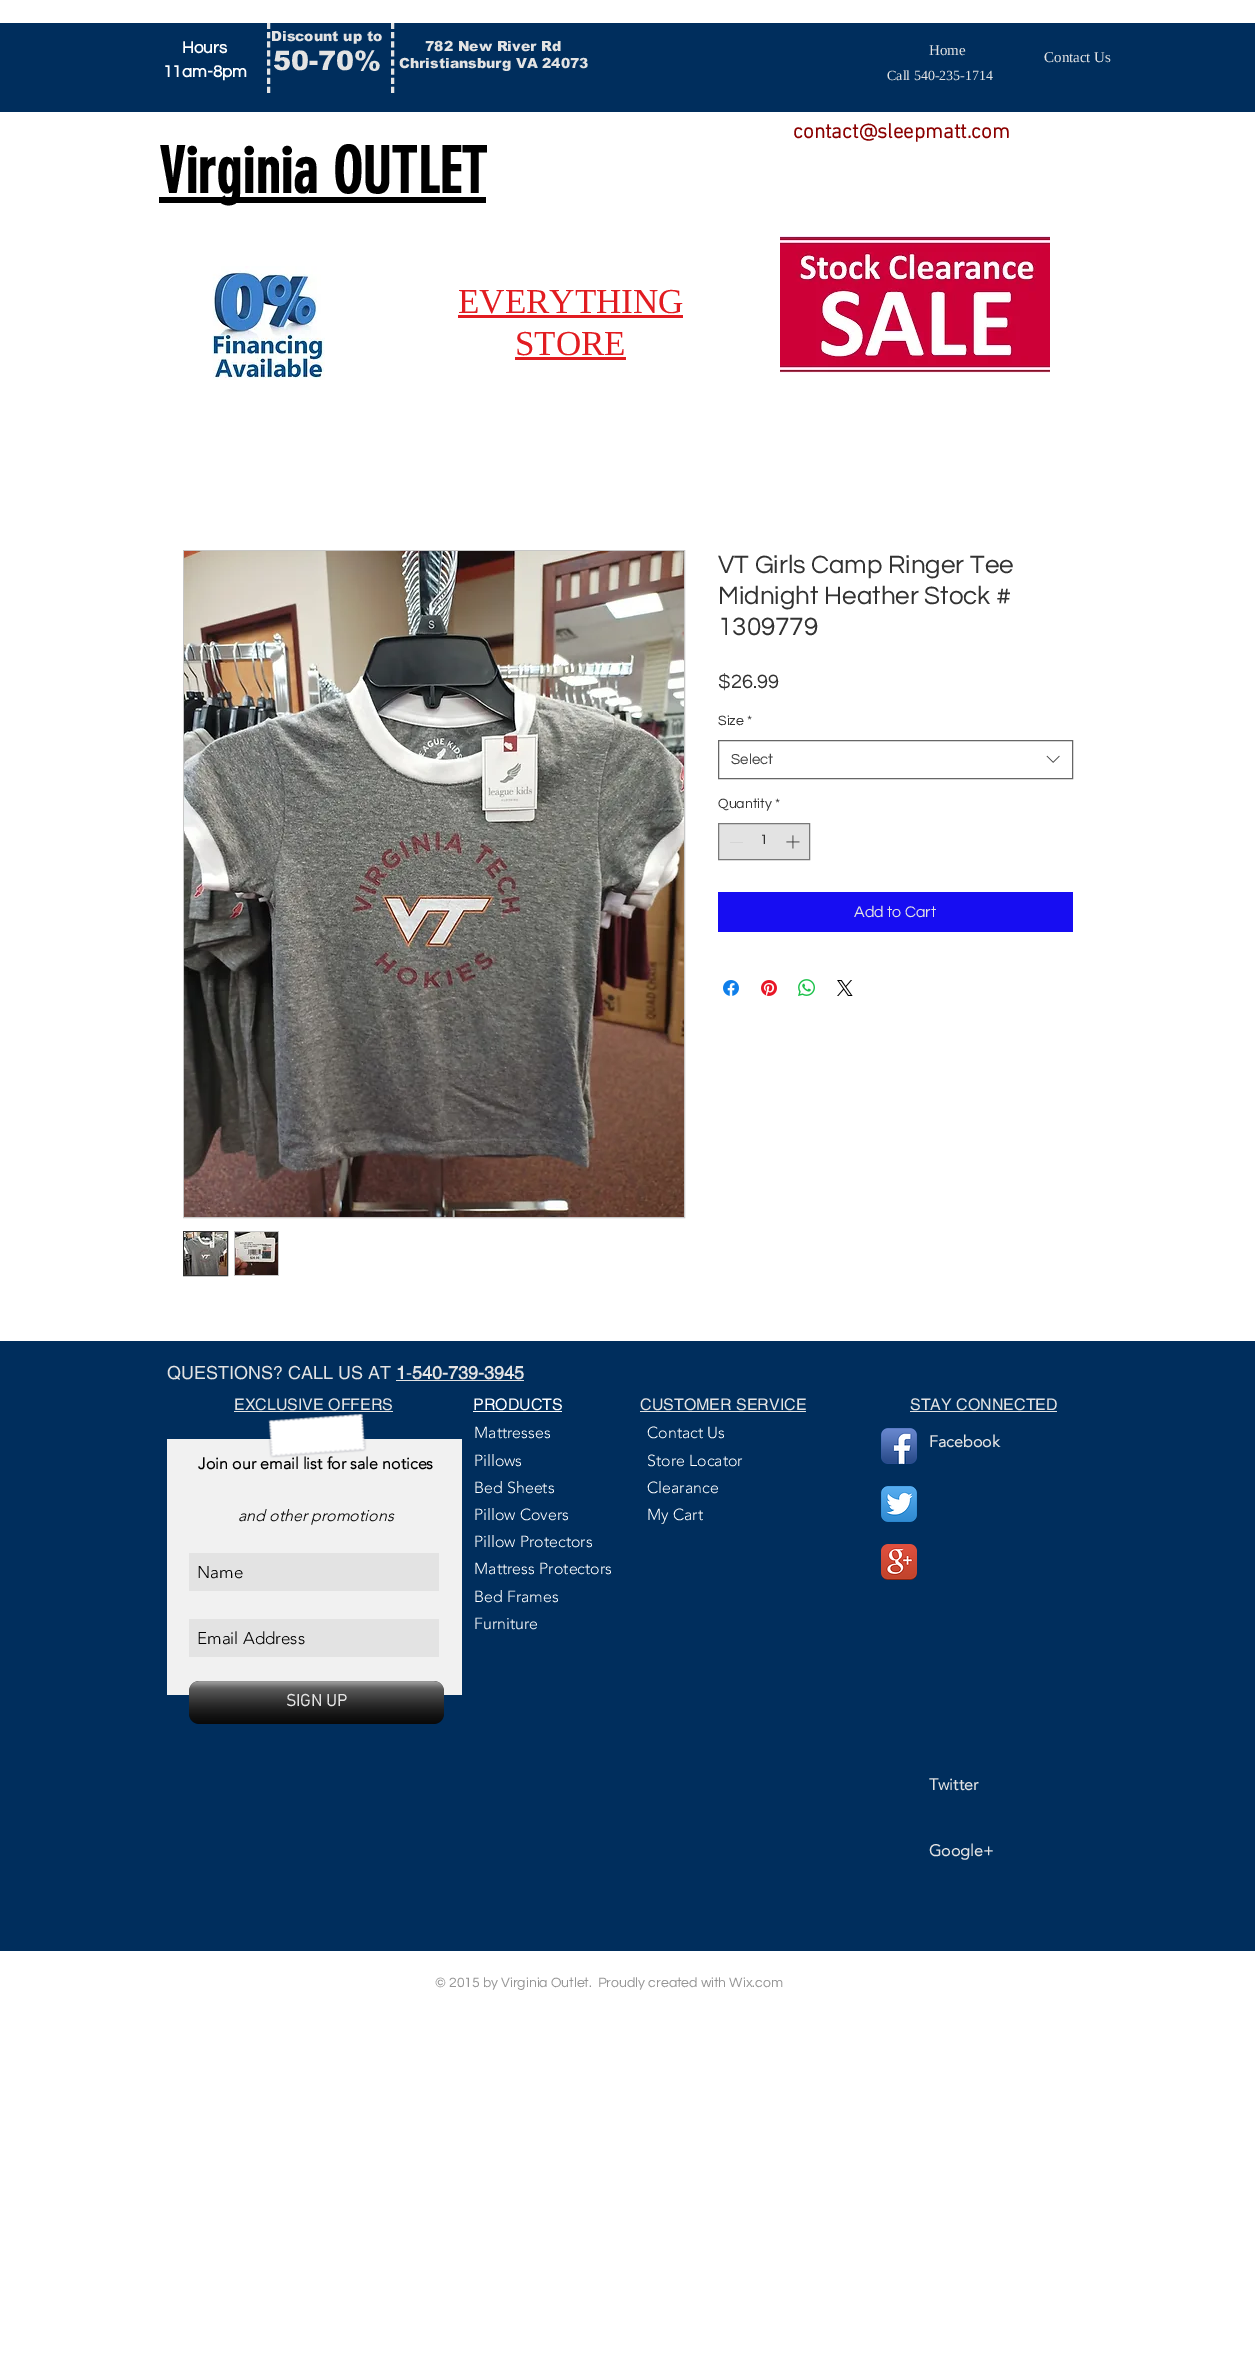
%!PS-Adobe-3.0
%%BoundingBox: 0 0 1255 2374
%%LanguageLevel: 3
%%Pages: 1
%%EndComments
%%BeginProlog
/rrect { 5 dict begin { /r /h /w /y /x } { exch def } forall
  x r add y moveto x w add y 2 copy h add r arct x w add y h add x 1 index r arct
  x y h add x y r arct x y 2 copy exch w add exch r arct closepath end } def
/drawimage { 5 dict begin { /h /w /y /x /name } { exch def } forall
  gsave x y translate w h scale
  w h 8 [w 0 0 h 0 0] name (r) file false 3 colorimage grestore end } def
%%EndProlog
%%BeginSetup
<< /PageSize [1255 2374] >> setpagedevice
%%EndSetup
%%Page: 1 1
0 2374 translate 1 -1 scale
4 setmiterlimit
1 setgray
0 0 1255 2374 rectfill
0 0.18 0.365 setrgbcolor
0 23 1255 89 rectfill
0.89 setgray
3 setlinewidth
[6 3.14] 0 setdash
newpath 268.5 23 moveto 268.5 93 lineto stroke
newpath 392.5 23 moveto 392.5 93 lineto stroke
0 setgray
159 197 327 6 rectfill
(images/1.raw) 212 266 113 114 drawimage
0.886 0.11 0.129 setrgbcolor
458 315 225 3 rectfill
515 357 111 3 rectfill
(images/2.raw) 780 236 270 137 drawimage
0.78 setgray
1 setlinewidth
[] 0 setdash
183.5 550.5 501 667 rectstroke
(images/3.raw) 184 551 500 666 drawimage
0.196 setgray
183.5 1231.5 44 44 rectstroke
(images/4.raw) 184 1232 43 43 drawimage
0.78 setgray
234 1231 45 45 rectfill
(images/5.raw) 235 1232 43 43 drawimage
0.4 setgray
718.5 740.5 354 38 rectstroke
(images/6.raw) 1046 755 14 8 drawimage
0.89 setgray
newpath 718.5 823.5 moveto 809.5 823.5 lineto 809.5 859.5 lineto 718.5 859.5 lineto closepath gsave fill grestore
0.475 setgray
stroke
0.835 setgray
730 842 13 1 rectfill
(images/7.raw) 786 835 14 14 drawimage
0.09 0.051 0.949 setrgbcolor
718 892 355 40 rectfill
(images/8.raw) 723 980 16 16 drawimage
(images/9.raw) 761 980 16 16 drawimage
(images/10.raw) 798 979 17 17 drawimage
(images/11.raw) 837 980 16 16 drawimage
0 0.18 0.365 setrgbcolor
0 1341 1255 610 rectfill
0.89 setgray
396 1380 128 1 rectfill
234 1411 159 1 rectfill
1 setgray
473 1411 89 1 rectfill
0.89 setgray
640 1411 166 1 rectfill
910 1411 147 1 rectfill
(images/12.raw) 881 1428 36 36 drawimage
(images/13.raw) 881 1486 36 36 drawimage
(images/14.raw) 881 1544 36 36 drawimage
0.945 setgray
167 1439 295 256 rectfill
(images/15.raw) 268 1413 99 45 drawimage
0.89 setgray
189 1553 250 38 rectfill
189 1619 250 38 rectfill
0 setgray
189 1681 255 43 10 rrect fill
(images/16.raw) 189 1681 255 43 drawimage
/Questrial-Bold [17 0 0 -17 0 0] selectfont
1 setgray
182 53 moveto (Hours) show
163 77 moveto (11am-8pm) show
/arial-Black [14 0 0 -14 0 0] selectfont
0.89 setgray
271 41 moveto (Discount up to) show
/arial-Black [27 0 0 -27 0 0] selectfont
273 70 moveto (50-70%) show
/arial-Black [14 0 0 -14 0 0] selectfont
425 51 moveto (782 New River Rd) show
399 68 moveto (Christiansburg VA 24073) show
/LiberationSerif-Regular [15 0 0 -15 0 0] selectfont
929 55 moveto (Home) show
1044 62 moveto (Contact Us) show
/LiberationSerif-Regular [14 0 0 -14 0 0] selectfont
887 80 moveto (Call 540-235-1714) show
/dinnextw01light-Bold [21 0 0 -21 0 0] selectfont
0.545 0 0 setrgbcolor
793 138 moveto (contact@sleepmatt.com) show
/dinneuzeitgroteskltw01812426-Bold [63 0 0 -63 0 0] selectfont
0 setgray
159 193 moveto (Virginia OUTLET) show
/LiberationSerif-Regular [35 0 0 -35 0 0] selectfont
0.886 0.11 0.129 setrgbcolor
458 313 moveto (EVERYTHING) show
515 355 moveto (STORE) show
/Questrial-Regular [26 0 0 -26 0 0] selectfont
0.196 setgray
718 573 moveto (VT Girls Camp Ringer Tee) show
718 604 moveto (Midnight Heather Stock #) show
718 635 moveto (1309779) show
/Questrial-Regular [20 0 0 -20 0 0] selectfont
718 688 moveto ($26.99) show
/Questrial-Regular [14 0 0 -14 0 0] selectfont
718 725 moveto (Size) show
747 725 moveto (*) show
/Questrial-Regular [15 0 0 -15 0 0] selectfont
0.267 setgray
731 764 moveto (Select) show
/Questrial-Regular [14 0 0 -14 0 0] selectfont
0.196 setgray
718 808 moveto (Quantity) show
775 808 moveto (*) show
760 844 moveto (1) show
/Questrial-Regular [16 0 0 -16 0 0] selectfont
0.89 setgray
854 917 moveto (Add to Cart) show
/helvetica-Regular [18 0 0 -18 0 0] selectfont
167 1379 moveto (QUESTIONS? CALL US AT) show
/helvetica-Bold [18 0 0 -18 0 0] selectfont
396 1379 moveto (1) show
/helvetica-Regular [18 0 0 -18 0 0] selectfont
406 1379 moveto (-) show
/helvetica-Bold [18 0 0 -18 0 0] selectfont
412 1379 moveto (540-739-3945) show
/helvetica-Regular [16 0 0 -16 0 0] selectfont
234 1410 moveto (EXCLUSIVE OFFERS) show
1 setgray
473 1410 moveto (PRODUCTS) show
0.89 setgray
640 1410 moveto (CUSTOMER SERVICE) show
910 1410 moveto (STAY CONNECTED) show
/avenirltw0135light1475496-Light [16 0 0 -16 0 0] selectfont
1 setgray
474 1438 moveto (Mattresses) show
474 1466 moveto (Pillows) show
474 1493 moveto (Bed Sheets) show
474 1520 moveto (Pillow Covers) show
474 1547 moveto (Pillow Protectors) show
474 1574 moveto (Mattress Protectors) show
474 1602 moveto (Bed Frames) show
474 1629 moveto (Furniture) show
647 1438 moveto (Contact Us) show
647 1466 moveto (Store Locator) show
647 1493 moveto (Clearance) show
647 1520 moveto (My Cart) show
/avenirltw0135light1475496-Bold [16 0 0 -16 0 0] selectfont
0.89 setgray
929 1447 moveto (Facebook) show
0 setgray
198 1469 moveto (Join our email list for sale notices) show
/avenirltw0135light1475496-LightItalic [16 0 0 -16 0 0] selectfont
238 1521 moveto (and other promotions) show
/avenirltw0135light1475496-Light [17 0 0 -17 0 0] selectfont
197 1578 moveto (Name) show
197 1644 moveto (Email Address) show
/dinnextw01light-Bold [17 0 0 -17 0 0] selectfont
0.89 setgray
286 1706 moveto (SIGN UP) show
/avenirltw0135light1475496-Bold [16 0 0 -16 0 0] selectfont
929 1790 moveto (Twitter) show
929 1856 moveto (Google+) show
/Questrial-Regular [14 0 0 -14 0 0] selectfont
0.584 setgray
435 1987 moveto (© 2015 by Virginia Outlet.  Proudly created with Wix.com) show
showpage
%%EOF
